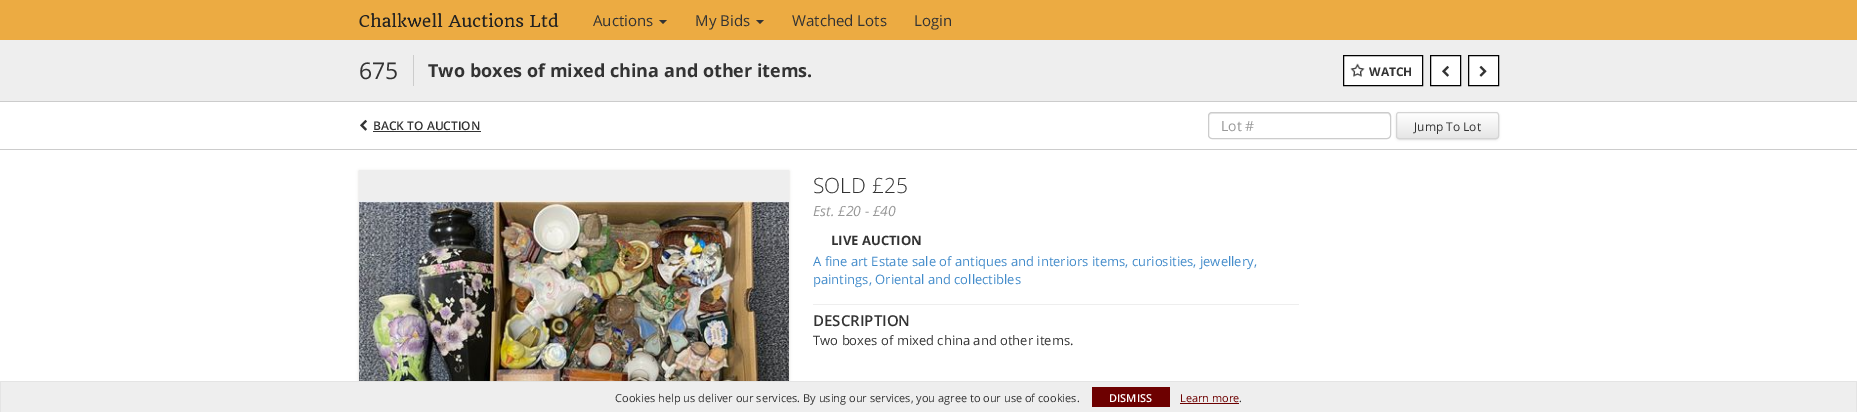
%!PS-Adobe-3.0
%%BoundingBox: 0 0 1857 412
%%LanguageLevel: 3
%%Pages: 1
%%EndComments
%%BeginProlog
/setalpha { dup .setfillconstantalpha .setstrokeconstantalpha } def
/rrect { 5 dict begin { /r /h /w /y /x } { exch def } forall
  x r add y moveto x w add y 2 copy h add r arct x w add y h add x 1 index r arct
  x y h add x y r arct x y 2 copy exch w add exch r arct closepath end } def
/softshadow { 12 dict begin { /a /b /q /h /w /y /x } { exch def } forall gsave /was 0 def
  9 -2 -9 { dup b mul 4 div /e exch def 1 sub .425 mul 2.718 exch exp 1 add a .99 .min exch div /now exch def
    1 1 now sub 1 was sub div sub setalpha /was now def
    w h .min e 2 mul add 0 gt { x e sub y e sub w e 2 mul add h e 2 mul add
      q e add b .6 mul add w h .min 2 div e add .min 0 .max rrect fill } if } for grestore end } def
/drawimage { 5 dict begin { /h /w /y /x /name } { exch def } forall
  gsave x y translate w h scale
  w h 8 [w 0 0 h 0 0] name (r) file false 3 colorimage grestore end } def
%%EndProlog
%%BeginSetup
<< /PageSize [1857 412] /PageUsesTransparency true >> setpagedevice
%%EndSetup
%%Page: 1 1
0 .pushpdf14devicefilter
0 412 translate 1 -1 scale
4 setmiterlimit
1 setgray
0 0 1857 412 rectfill
0.925 0.671 0.259 setrgbcolor
0 0 1857 40 rectfill
(images/1.raw) 359 13 200 15 drawimage
0.2 setgray
newpath 659 20 moveto 667 20 lineto 663 24 lineto closepath fill
newpath 756 20 moveto 764 20 lineto 760 24 lineto closepath fill
0.933 setgray
0 40 1857 61 rectfill
0.8 setgray
0 101 1857 1 rectfill
413 55 1 31 rectfill
1 setgray
newpath 1343.5 55.5 moveto 1422.5 55.5 lineto 1422.5 85.5 lineto 1343.5 85.5 lineto closepath gsave fill grestore
0 setgray
stroke
(images/2.raw) 1350 63 15 14 drawimage
1 setgray
newpath 1430.5 55.5 moveto 1460.5 55.5 lineto 1460.5 85.5 lineto 1430.5 85.5 lineto closepath gsave fill grestore
0 setgray
stroke
(images/3.raw) 1442 65 7 12 drawimage
1 setgray
newpath 1468.5 55.5 moveto 1498.5 55.5 lineto 1498.5 85.5 lineto 1468.5 85.5 lineto closepath gsave fill grestore
0 setgray
stroke
(images/4.raw) 1479 65 8 12 drawimage
(images/3.raw) 360 119 7 12 drawimage
0.2 setgray
373 131 108 1 rectfill
0.925 setgray
newpath 1212 114 moveto 1388 114 lineto 1389 115 lineto 1390 117 lineto 1390 116 lineto 1390 114 1389 113 1387 113 curveto 1212 113 lineto 1210 113 1209 114 1209 116 curveto 1209 117 lineto 1209 115 1210 114 1212 114 curveto closepath fill
0.8 setgray
1208.5 112.5 182 26 3.5 rrect stroke
0 setgray
1397 114 101 25 2 1.5 0.2 softshadow
gsave
1396 112 103 27 3 rrect clip newpath
gsave newpath 1396 113 moveto 1499 113 lineto 1499 138 lineto 1396 138 lineto closepath clip newpath
<< /ShadingType 2 /ColorSpace /DeviceRGB /Coords [1448 113 1448 138] /Extend [true true] /Function << /FunctionType 2 /Domain [0 1] /C0 [1 1 1] /C1 [0.902 0.902 0.902] /N 1 >> >> shfill grestore
grestore
0.4 setalpha
1 setgray
newpath 1399 114 moveto 1496 114 lineto 1497 114 1498 115 1498 116 curveto 1498 115 1498 113 1496 113 curveto 1415 113 lineto 1414 113 1397 108 1397 116 curveto 1397 115 1398 114 1399 114 curveto closepath fill
1 setalpha
0.831 setgray
1396.5 112.5 102 26 2.5 rrect stroke
0.8 setgray
0 149 1857 1 rectfill
0.855 0.851 0.843 setrgbcolor
359 171 430 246 0 1.5 1 softshadow
(images/5.raw) 359 170 430 211 drawimage
0.933 setgray
813 304 486 1 rectfill
1 382 1855 30 rectfill
0.894 setgray
0 381 1857 1 rectfill
1856 381 1 31 rectfill
0 381 1 31 rectfill
0.427 0 0 setrgbcolor
1092 387 78 20 rectfill
1180 403 59 1 rectfill
/OpenSans-Regular [15 0 0 -15 0 0] selectfont
0.2 setgray
593 26 moveto (Auctions) show
695 26 moveto (My Bids) show
792 26 moveto (Watched Lots) show
914 26 moveto (Login) show
/OpenSans-Regular [23 0 0 -23 0 0] selectfont
359 79 moveto (675) show
/OpenSans-Bold [18 0 0 -18 0 0] selectfont
428 77 moveto (Two boxes of mixed china and other items.) show
/OpenSans-Bold [12 0 0 -12 0 0] selectfont
1369 76 moveto (WATCH) show
/OpenSans-SemiBold [12 0 0 -12 0 0] selectfont
373 130 moveto (BACK TO AUCTION) show
/OpenSans-Regular [14 0 0 -14 0 0] selectfont
0.6 setgray
1221 131 moveto (Lot #) show
/OpenSans-Regular [12 0 0 -12 0 0] selectfont
0.2 setgray
1414 131 moveto (Jump To Lot) show
/OpenSans-Light [21 0 0 -21 0 0] selectfont
813 193 moveto (SOLD £25) show
/OpenSans-Italic [14 0 0 -14 0 0] selectfont
0.6 setgray
813 216 moveto (Est. £20 - £40) show
/OpenSans-Bold [13 0 0 -13 0 0] selectfont
0.2 setgray
831 245 moveto (LIVE AUCTION) show
/OpenSans-Regular [13 0 0 -13 0 0] selectfont
0.259 0.545 0.792 setrgbcolor
813 266 moveto (A fine art Estate sale of antiques and interiors items, curiosities, jewellery,) show
813 284 moveto (paintings, Oriental and collectibles) show
/OpenSans-SemiBold [15 0 0 -15 0 0] selectfont
0.2 setgray
813 326 moveto (DESCRIPTION) show
/OpenSans-Regular [13 0 0 -13 0 0] selectfont
813 345 moveto (Two boxes of mixed china and other items.) show
/OpenSans-Regular [11 0 0 -11 0 0] selectfont
615 402 moveto (Cookies help us deliver our services. By using our services, you agree to our use of cookies.) show
/OpenSans-SemiBold [11 0 0 -11 0 0] selectfont
1 setgray
1109 402 moveto (DISMISS) show
/OpenSans-Regular [11 0 0 -11 0 0] selectfont
0.427 0 0 setrgbcolor
1180 402 moveto (Learn more) show
0.2 setgray
1239 402 moveto (.) show
.poppdf14devicefilter showpage
%%EOF
